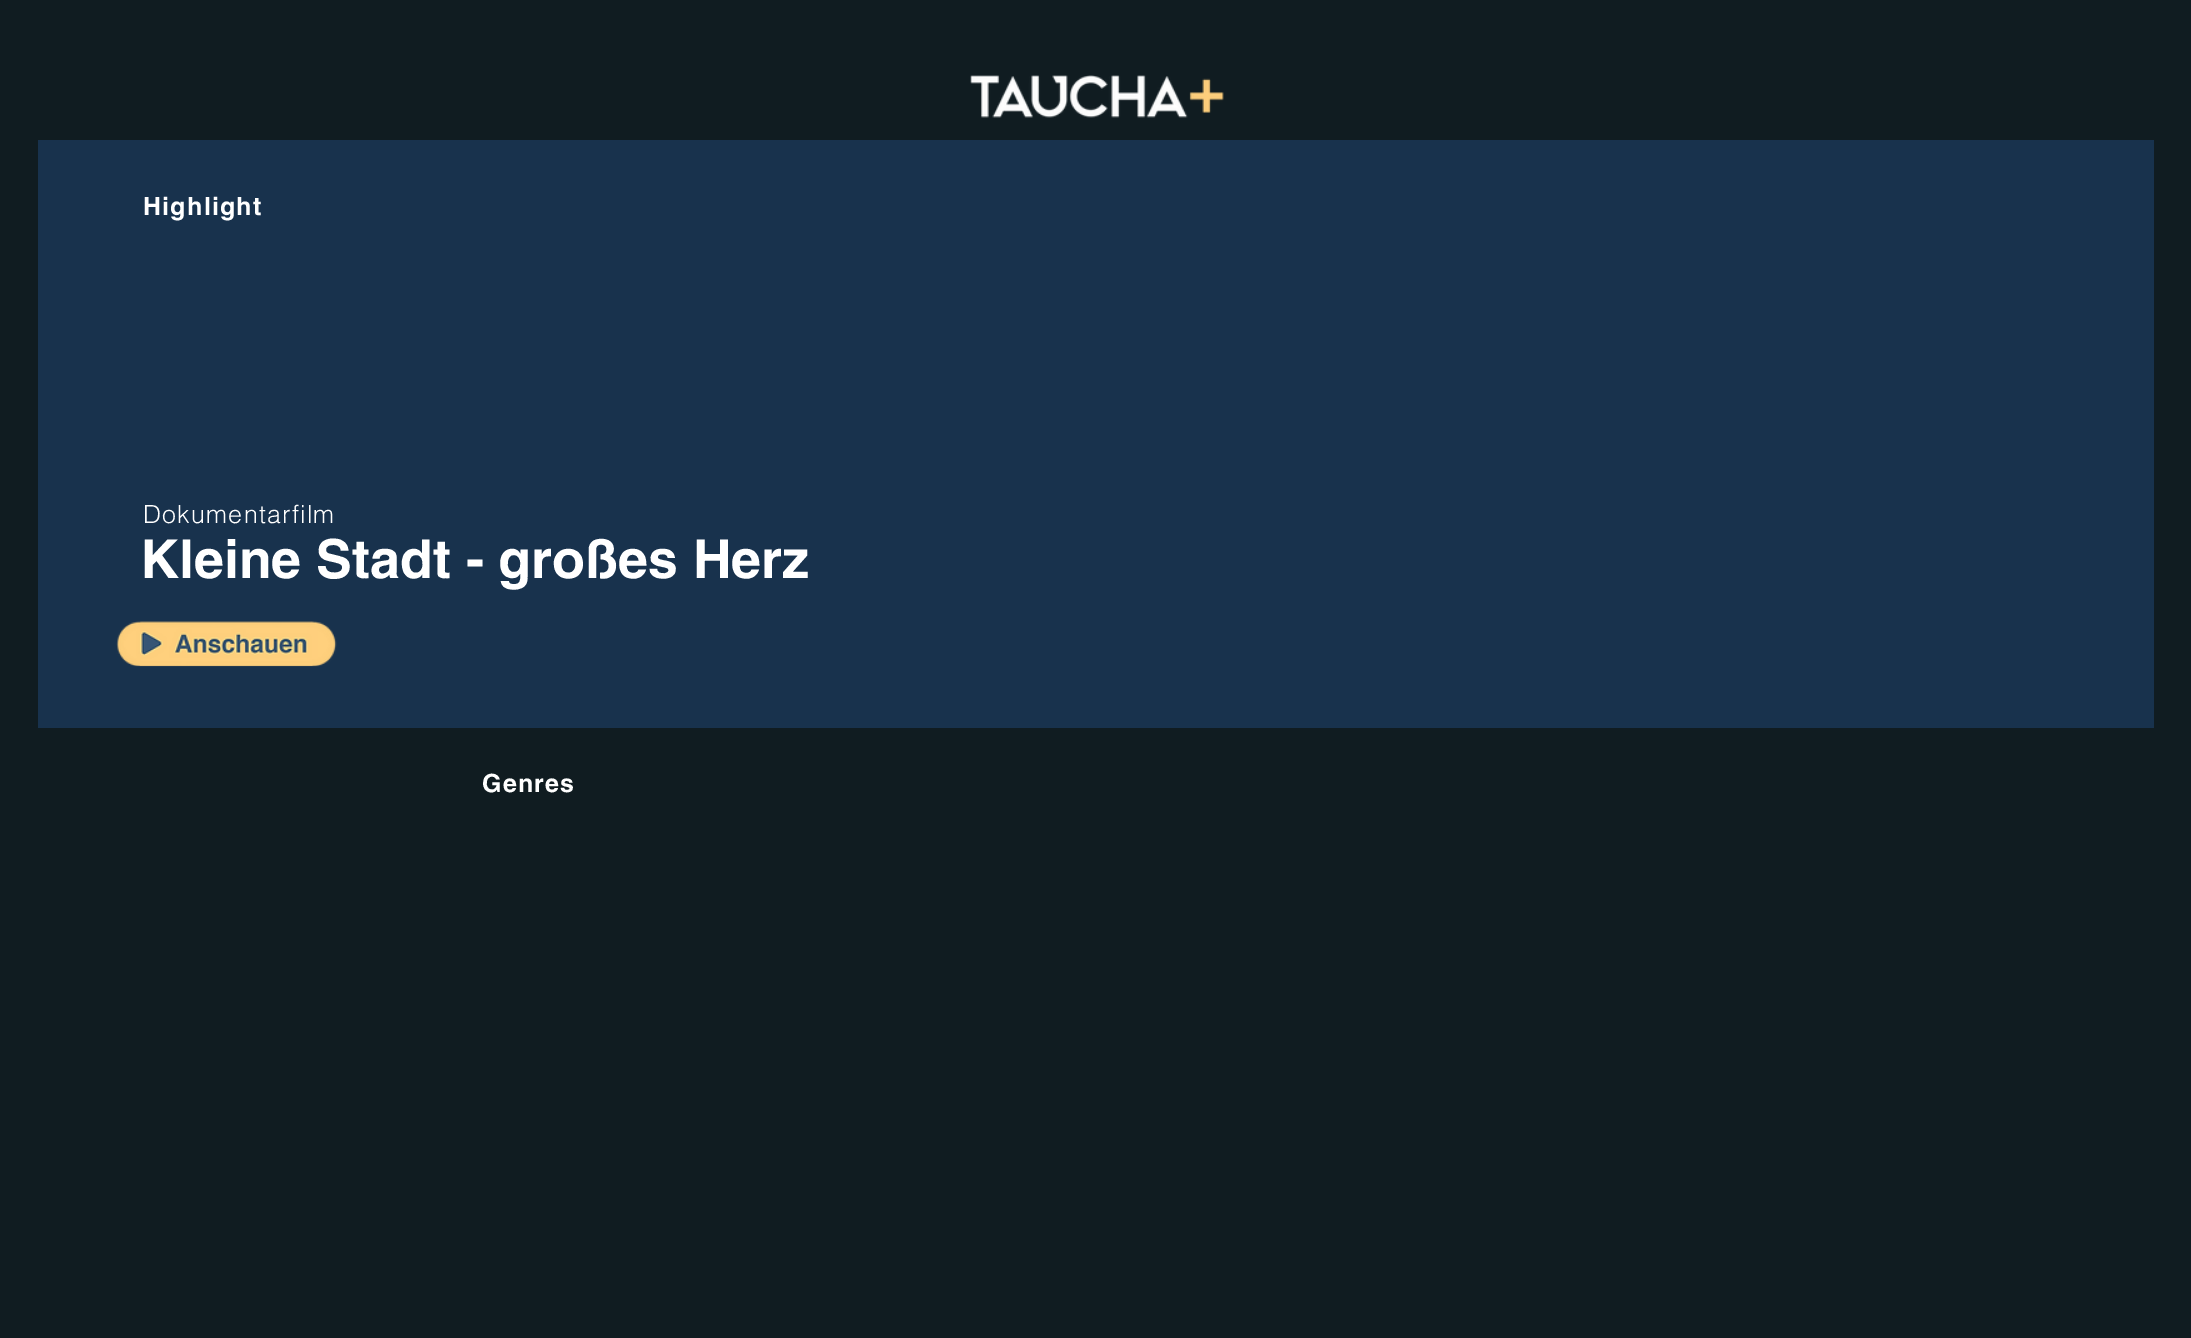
%!PS-Adobe-3.0
%%BoundingBox: 0 0 2191 1338
%%LanguageLevel: 3
%%Pages: 1
%%EndComments
%%BeginProlog
/drawimage { 5 dict begin { /h /w /y /x /name } { exch def } forall
  gsave x y translate w h scale
  w h 8 [w 0 0 h 0 0] name (r) file false 3 colorimage grestore end } def
%%EndProlog
%%BeginSetup
<< /PageSize [2191 1338] >> setpagedevice
%%EndSetup
%%Page: 1 1
0 1338 translate 1 -1 scale
4 setmiterlimit
0.063 0.11 0.129 setrgbcolor
0 0 2191 1338 rectfill
(images/1.raw) 970 75 218 43 drawimage
(images/2.raw) 1189 78 35 35 drawimage
0.094 0.196 0.302 setrgbcolor
38 140 2116 588 rectfill
(images/3.raw) 116 621 221 46 drawimage
/helvetica-Bold [25 0 0 -25 0 0] selectfont
1 setgray
143 215 moveto 1.25 0 (Highlight) ashow
/helvetica-Light [25 0 0 -25 0 0] selectfont
143 523 moveto 1.25 0 (Dokumentarfilm) ashow
/helvetica-Bold [53.75 0 0 -53.75 0 0] selectfont
140 578 moveto (Kleine Stadt - großes Herz) show
/helvetica-Bold [25 0 0 -25 0 0] selectfont
482 792 moveto 1.25 0 (Genres) ashow
showpage
%%EOF
